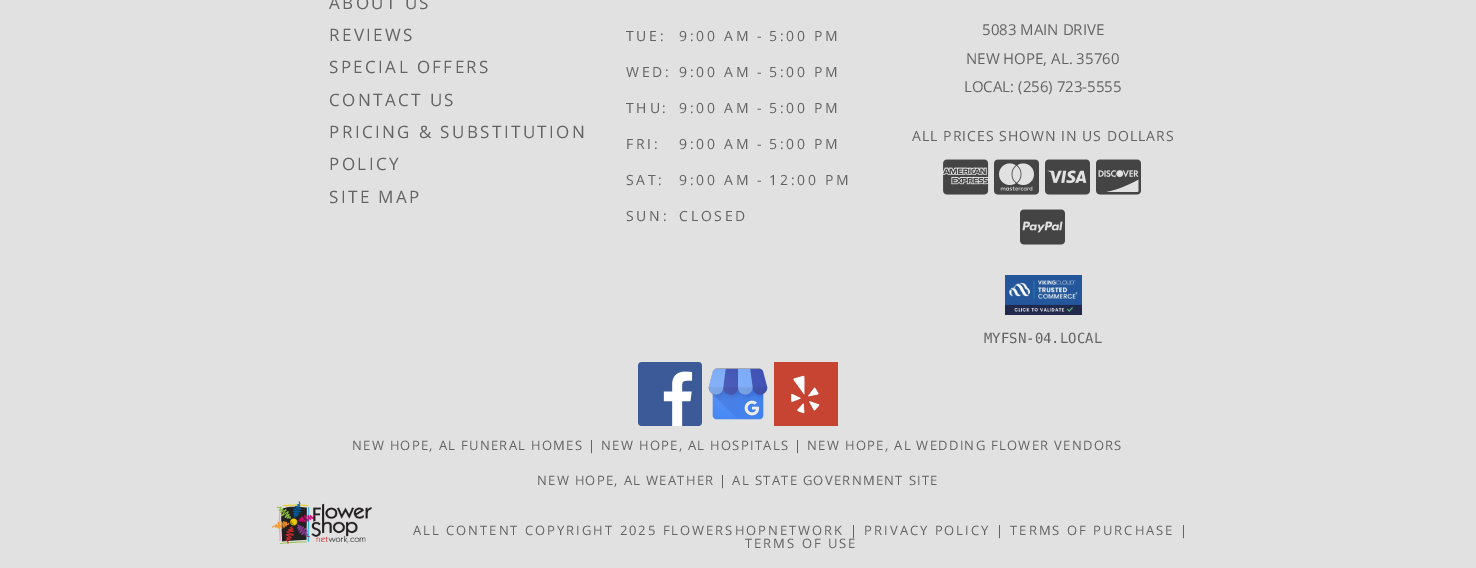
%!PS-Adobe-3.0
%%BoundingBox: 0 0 1476 568
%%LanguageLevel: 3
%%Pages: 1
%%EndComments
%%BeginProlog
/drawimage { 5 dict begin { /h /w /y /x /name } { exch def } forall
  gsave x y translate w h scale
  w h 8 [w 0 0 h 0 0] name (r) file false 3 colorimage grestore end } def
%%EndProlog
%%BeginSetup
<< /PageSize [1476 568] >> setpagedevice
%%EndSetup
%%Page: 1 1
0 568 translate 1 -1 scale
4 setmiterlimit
0.882 setgray
0 0 1476 568 rectfill
(images/1.raw) 943 159 46 36 drawimage
(images/2.raw) 994 159 45 36 drawimage
(images/3.raw) 1045 159 45 36 drawimage
(images/4.raw) 1096 159 45 36 drawimage
(images/5.raw) 1020 209 45 36 drawimage
(images/6.raw) 1005 275 77 40 drawimage
(images/7.raw) 638 362 64 64 drawimage
(images/8.raw) 708 368 60 52 drawimage
(images/9.raw) 774 362 64 64 drawimage
(images/10.raw) 272 501 100 43 drawimage
/OpenSans-Regular [17 0 0 -17 0 0] selectfont
0.388 setgray
329 9 moveto 2.4 0 (ABOUT US) ashow
329 41 moveto 2.4 0 (REVIEWS) ashow
329 73 moveto 2.4 0 (SPECIAL OFFERS) ashow
329 106 moveto 2.4 0 (CONTACT US) ashow
329 138 moveto 2.4 0 (PRICING & SUBSTITUTION) ashow
329 170 moveto 2.4 0 (POLICY) ashow
329 203 moveto 2.4 0 (SITE MAP) ashow
/OpenSans-Regular [14 0 0 -14 0 0] selectfont
626 41 moveto 2.75 0 (TUE:) ashow
679 41 moveto 2.75 0 (9:00 AM -) ashow
769 41 moveto 2.75 0 (5:00 PM) ashow
626 77 moveto 2.75 0 (WED:) ashow
679 77 moveto 2.75 0 (9:00 AM -) ashow
769 77 moveto 2.75 0 (5:00 PM) ashow
626 113 moveto 2.75 0 (THU:) ashow
679 113 moveto 2.75 0 (9:00 AM -) ashow
769 113 moveto 2.75 0 (5:00 PM) ashow
626 149 moveto 2.75 0 (FRI:) ashow
679 149 moveto 2.75 0 (9:00 AM -) ashow
769 149 moveto 2.75 0 (5:00 PM) ashow
626 185 moveto 2.75 0 (SAT:) ashow
679 185 moveto 2.75 0 (9:00 AM -) ashow
769 185 moveto 2.75 0 (12:00 PM) ashow
626 221 moveto 2.75 0 (SUN:) ashow
679 221 moveto 2.75 0 (CLOSED) ashow
/OpenSans-Regular [15 0 0 -15 0 0] selectfont
982 35 moveto (5083 MAIN DRIVE) show
966 64 moveto (NEW HOPE, AL. 35760) show
964 92 moveto (LOCAL: \(256\) 723-5555) show
/OpenSans-Regular [14 0 0 -14 0 0] selectfont
912 141 moveto 1 0 (ALL PRICES SHOWN IN US DOLLARS) ashow
/DejaVuSansMono-Regular [14 0 0 -14 0 0] selectfont
984 343 moveto (MYFSN-04.LOCAL) show
/OpenSans-Regular [13 0 0 -13 0 0] selectfont
352 450 moveto 1.3 0 (NEW HOPE, AL FUNERAL HOMES | NEW HOPE, AL HOSPITALS | NEW HOPE, AL WEDDING FLOWER VENDORS) ashow
537 485 moveto 1.3 0 (NEW HOPE, AL WEATHER | AL STATE GOVERNMENT SITE) ashow
413 535 moveto 2 0 (ALL CONTENT COPYRIGHT 2025 FLOWERSHOPNETWORK | PRIVACY POLICY | TERMS OF PURCHASE |) ashow
745 548 moveto 2 0 (TERMS OF USE) ashow
showpage
%%EOF
